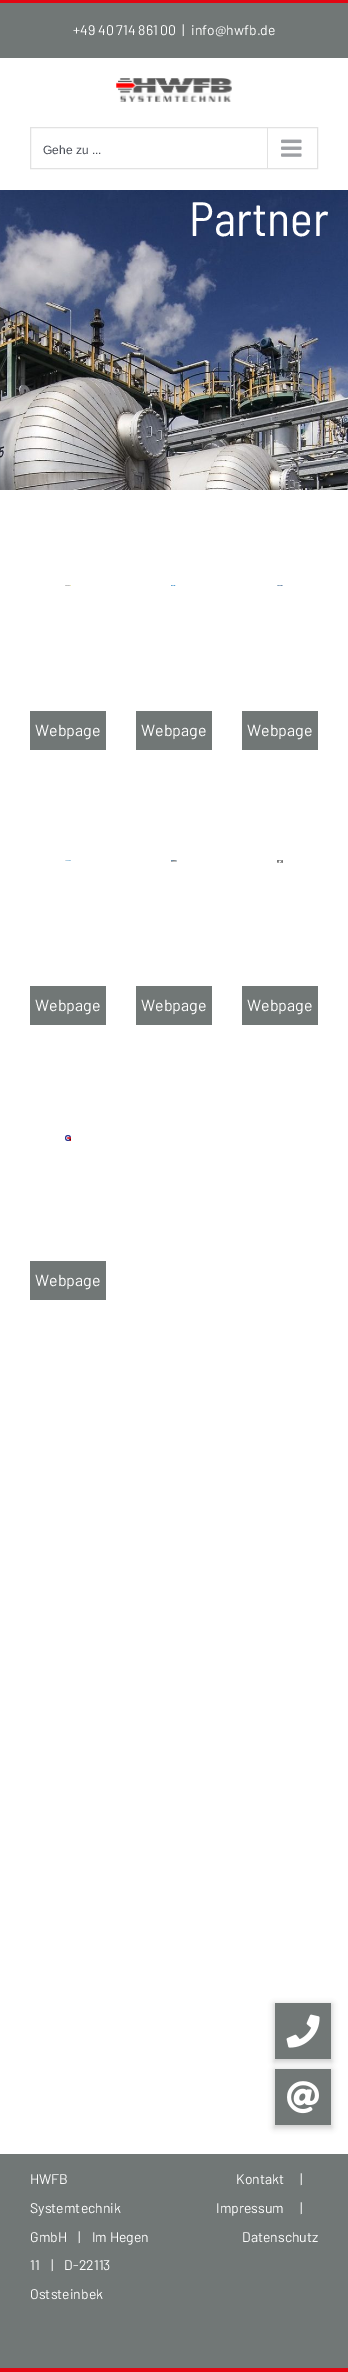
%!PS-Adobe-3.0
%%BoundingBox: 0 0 348 2372
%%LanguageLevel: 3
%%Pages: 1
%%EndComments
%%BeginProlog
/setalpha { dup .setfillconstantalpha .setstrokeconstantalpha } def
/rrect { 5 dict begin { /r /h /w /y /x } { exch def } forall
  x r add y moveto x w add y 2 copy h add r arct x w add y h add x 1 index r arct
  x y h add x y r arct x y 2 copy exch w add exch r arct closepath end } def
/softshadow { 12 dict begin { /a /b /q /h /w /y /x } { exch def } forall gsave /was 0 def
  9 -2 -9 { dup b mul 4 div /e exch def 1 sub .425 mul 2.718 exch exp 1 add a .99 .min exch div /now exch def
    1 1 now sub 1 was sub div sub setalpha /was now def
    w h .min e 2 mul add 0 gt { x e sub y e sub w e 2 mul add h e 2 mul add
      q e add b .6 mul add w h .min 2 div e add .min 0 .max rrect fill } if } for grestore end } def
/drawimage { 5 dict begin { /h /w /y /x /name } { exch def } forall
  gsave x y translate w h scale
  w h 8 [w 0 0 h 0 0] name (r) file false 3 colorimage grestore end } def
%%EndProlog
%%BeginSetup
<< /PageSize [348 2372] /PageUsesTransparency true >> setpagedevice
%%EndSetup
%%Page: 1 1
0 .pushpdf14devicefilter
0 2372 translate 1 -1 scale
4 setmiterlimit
1 setgray
0 0 348 2372 rectfill
0.443 0.467 0.463 setrgbcolor
0 3 348 55 rectfill
0.89 0.024 0.075 setrgbcolor
0 0 348 3 rectfill
(images/1.raw) 116 78 116 24 drawimage
0.886 setgray
30.5 127.5 287 41 rectstroke
267 128 1 40 rectfill
(images/2.raw) 281 139 21 18 drawimage
(images/3.raw) 0 190 348 300 drawimage
(images/4.raw) 65 585 6 1 drawimage
0.443 0.467 0.463 setrgbcolor
30 711 76 39 rectfill
(images/5.raw) 171 585 5 1 drawimage
136 711 76 39 rectfill
(images/6.raw) 277 585 6 1 drawimage
242 711 76 39 rectfill
(images/7.raw) 65 860 6 1 drawimage
30 986 76 39 rectfill
(images/8.raw) 171 860 6 2 drawimage
136 986 76 39 rectfill
(images/9.raw) 277 860 6 3 drawimage
242 986 76 39 rectfill
(images/10.raw) 65 1135 6 6 drawimage
30 1261 76 39 rectfill
0 2154 348 214 rectfill
0.89 0.024 0.075 setrgbcolor
0 2368 348 4 rectfill
0 setgray
274 2070 58 58 0 3 0.2 softshadow
0.443 0.467 0.463 setrgbcolor
275 2069 56 56 rectfill
0 setgray
274 2004 58 58 0 3 0.2 softshadow
0.443 0.467 0.463 setrgbcolor
275 2003 56 56 rectfill
(images/11.raw) 286 2014 34 34 drawimage
(images/12.raw) 287 2081 32 33 drawimage
/Barlow-Regular [14 0 0 -14 0 0] selectfont
1 setgray
73 35 moveto (+49 40 714 861 00) show
182 35 moveto (|) show
191 35 moveto (info@hwfb.de) show
/LiberationSans-Regular [12 0 0 -12 0 0] selectfont
0.29 0.306 0.341 setrgbcolor
43 154 moveto (Gehe zu ...) show
/BarlowSemiCondensed-Regular [48 0 0 -48 0 0] selectfont
1 setgray
189 236 moveto (Partner) show
/Barlow-Regular [16 0 0 -16 0 0] selectfont
35 736 moveto (Webpage) show
141 736 moveto (Webpage) show
247 736 moveto (Webpage) show
35 1011 moveto (Webpage) show
141 1011 moveto (Webpage) show
247 1011 moveto (Webpage) show
35 1286 moveto (Webpage) show
/Barlow-Regular [14 0 0 -14 0 0] selectfont
30 2184 moveto (HWFB) show
30 2213 moveto (Systemtechnik) show
30 2242 moveto (GmbH    |    Im Hegen) show
30 2270 moveto (11    |    D-22113) show
30 2299 moveto (Oststeinbek) show
236 2184 moveto (Kontakt) show
300 2184 moveto (|) show
216 2213 moveto (Impressum) show
300 2213 moveto (|) show
242 2242 moveto (Datenschutz) show
.poppdf14devicefilter showpage
%%EOF
